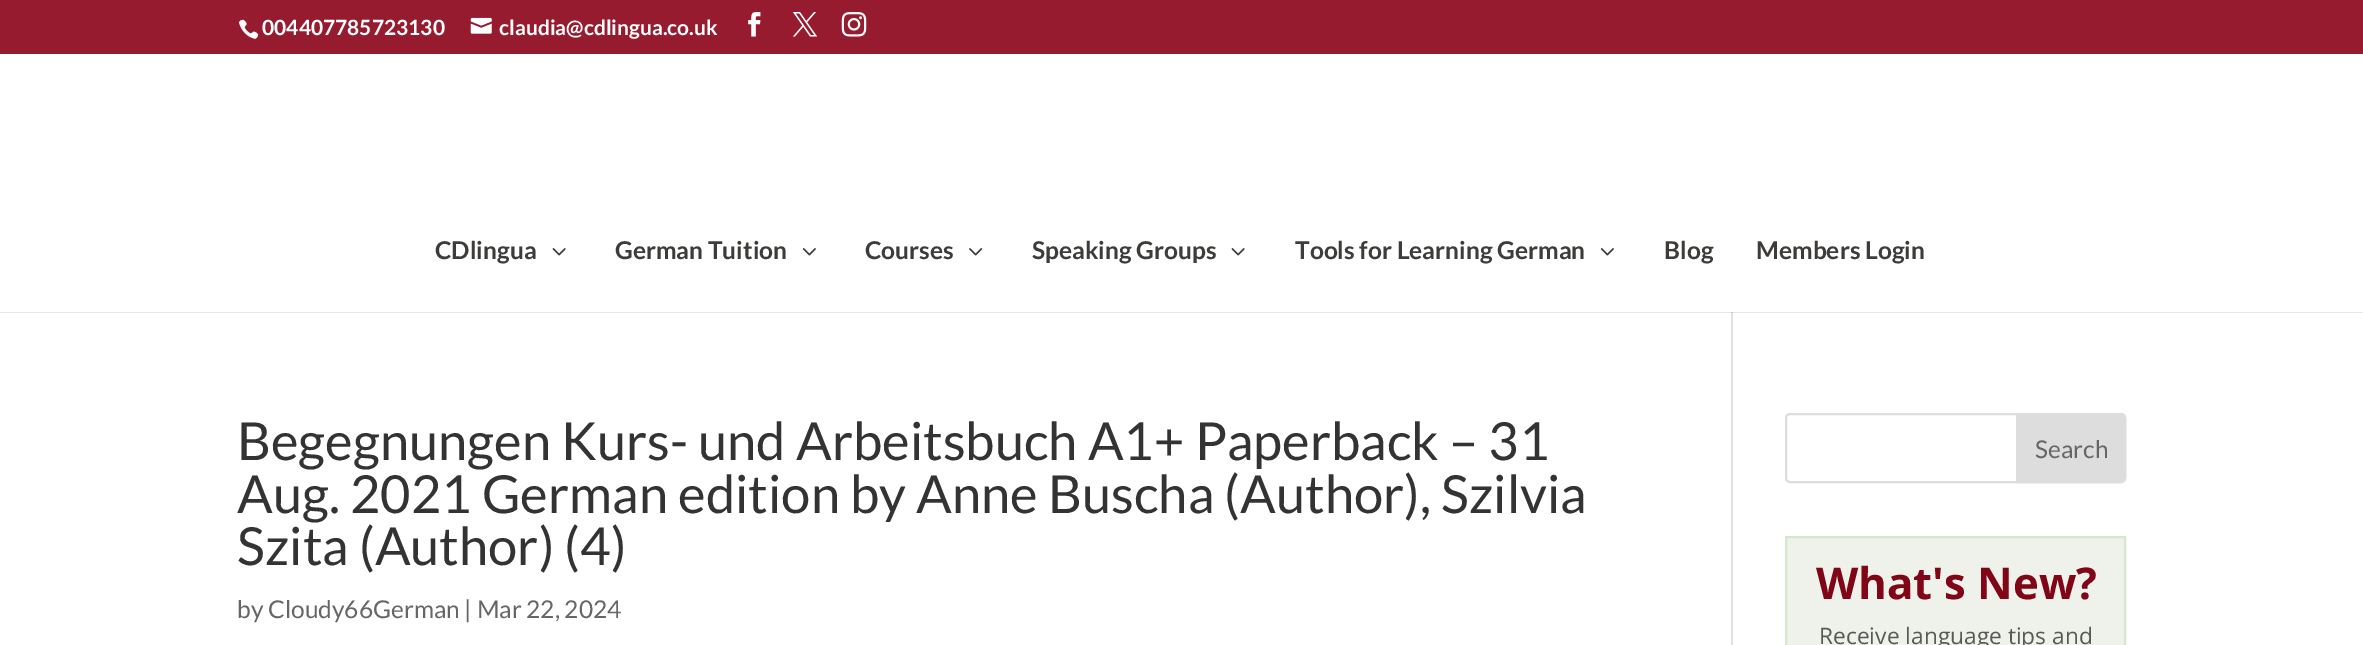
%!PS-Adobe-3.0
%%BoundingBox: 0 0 2363 645
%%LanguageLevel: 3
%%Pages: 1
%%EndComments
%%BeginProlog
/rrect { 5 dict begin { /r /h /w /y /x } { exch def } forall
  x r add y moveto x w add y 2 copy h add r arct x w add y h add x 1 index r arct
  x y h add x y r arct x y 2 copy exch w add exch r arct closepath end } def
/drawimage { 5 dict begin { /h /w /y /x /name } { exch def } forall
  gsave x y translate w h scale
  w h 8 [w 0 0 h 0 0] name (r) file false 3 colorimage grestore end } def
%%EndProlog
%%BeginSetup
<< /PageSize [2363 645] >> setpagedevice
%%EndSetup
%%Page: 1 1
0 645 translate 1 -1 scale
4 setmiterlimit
1 setgray
0 0 2363 645 rectfill
0.902 setgray
0 312 2363 1 rectfill
0.592 0.106 0.184 setrgbcolor
0 0 2363 54 rectfill
(images/1.raw) 238 19 21 20 drawimage
(images/2.raw) 470 17 22 17 drawimage
(images/3.raw) 748 12 13 25 drawimage
(images/4.raw) 792 12 26 25 drawimage
(images/5.raw) 841 12 26 25 drawimage
(images/6.raw) 552 248 14 8 drawimage
(images/7.raw) 802 248 14 8 drawimage
(images/8.raw) 969 248 14 8 drawimage
(images/6.raw) 1231 248 14 8 drawimage
(images/7.raw) 1600 248 14 8 drawimage
0.886 setgray
1731 312 2 333 rectfill
0.796 setgray
1731 312 2 1 rectfill
0.867 setgray
2 setlinewidth
1786 414 339 68 4 rrect stroke
newpath 2017 414 moveto 2121 414 lineto 2123 414 2125 416 2125 418 curveto 2125 478 lineto 2125 480 2123 482 2121 482 curveto 2017 482 lineto closepath gsave fill grestore
stroke
0.933 0.949 0.918 setrgbcolor
newpath 1786 537 moveto 2125 537 lineto 2125 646 lineto 1786 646 lineto closepath gsave fill grestore
0.831 0.91 0.816 setrgbcolor
stroke
/Lato-Bold [21 0 0 -21 0 0] selectfont
1 setgray
262 35 moveto (004407785723130) show
499 35 moveto (claudia@cdlingua.co.uk) show
/Lato-Bold [24.5 0 0 -24.5 0 0] selectfont
0.239 0.235 0.227 setrgbcolor
435 259 moveto (CDlingua) show
615 259 moveto (German Tuition) show
865 259 moveto (Courses) show
1032 259 moveto (Speaking Groups) show
1295 259 moveto (Tools for Learning German) show
1664 259 moveto (Blog) show
1756 259 moveto (Members Login) show
/Lato-Regular [52.5 0 0 -52.5 0 0] selectfont
0.2 setgray
237 460 moveto (Begegnungen Kurs- und Arbeitsbuch A1+ Paperback – 31) show
237 513 moveto (Aug. 2021 German edition by Anne Buscha \(Author\), Szilvia) show
237 565 moveto (Szita \(Author\) \(4\)) show
/Lato-Regular [24.5 0 0 -24.5 0 0] selectfont
0.4 setgray
237 618 moveto (by Cloudy66German | Mar 22, 2024) show
2035 458 moveto (Search) show
/OpenSans-Bold [43.75 0 0 -43.75 0 0] selectfont
0.502 0.02 0.09 setrgbcolor
1816 599 moveto (What's New?) show
/OpenSans-Regular [22.75 0 0 -22.75 0 0] selectfont
0.349 setgray
1819 644 moveto (Receive language tips and) show
showpage
%%EOF
